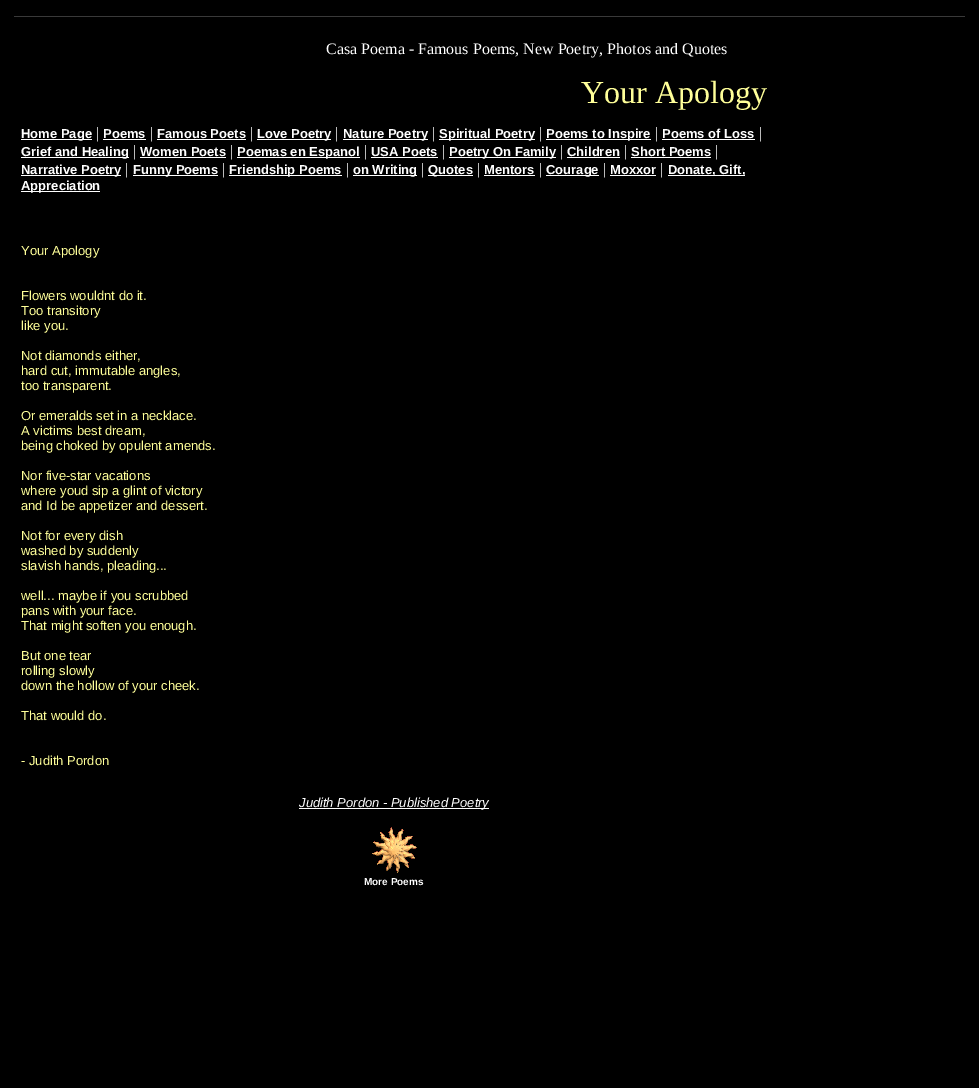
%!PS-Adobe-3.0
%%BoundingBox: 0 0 979 1088
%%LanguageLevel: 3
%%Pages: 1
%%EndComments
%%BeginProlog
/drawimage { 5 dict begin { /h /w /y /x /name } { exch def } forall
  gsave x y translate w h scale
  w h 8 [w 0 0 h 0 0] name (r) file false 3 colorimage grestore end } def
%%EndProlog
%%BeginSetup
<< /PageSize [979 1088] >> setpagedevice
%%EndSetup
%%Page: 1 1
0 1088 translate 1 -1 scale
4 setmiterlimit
0 setgray
0 0 979 1088 rectfill
0.224 setgray
14 16 951 1 rectfill
1 setgray
21 139 71 1 rectfill
103 139 43 1 rectfill
157 139 89 1 rectfill
257 139 74 1 rectfill
343 139 85 1 rectfill
439 139 96 1 rectfill
546 139 105 1 rectfill
662 139 93 1 rectfill
21 157 108 1 rectfill
140 157 86 1 rectfill
237 157 123 1 rectfill
371 157 67 1 rectfill
449 157 107 1 rectfill
567 157 53 1 rectfill
631 157 80 1 rectfill
21 175 100 1 rectfill
133 175 85 1 rectfill
229 175 113 1 rectfill
353 175 64 1 rectfill
428 175 45 1 rectfill
484 175 51 1 rectfill
546 175 53 1 rectfill
610 175 46 1 rectfill
668 175 77 1 rectfill
21 191 79 1 rectfill
299 808 190 1 rectfill
(images/1.raw) 372 827 45 46 drawimage
/LiberationSerif-Regular [16 0 0 -16 0 0] selectfont
326 54 moveto (Casa Poema - Famous Poems, New Poetry, Photos and Quotes) show
/LiberationSerif-Regular [32 0 0 -32 0 0] selectfont
1 1 0.6 setrgbcolor
581 103 moveto (Your Apology) show
/LiberationSans-Bold [13 0 0 -13 0 0] selectfont
1 setgray
21 138 moveto (Home Page) show
/LiberationSerif-Regular [16 0 0 -16 0 0] selectfont
96 138 moveto (|) show
/LiberationSans-Bold [13 0 0 -13 0 0] selectfont
103 138 moveto (Poems) show
/LiberationSerif-Regular [16 0 0 -16 0 0] selectfont
150 138 moveto (|) show
/LiberationSans-Bold [13 0 0 -13 0 0] selectfont
157 138 moveto (Famous Poets) show
/LiberationSerif-Regular [16 0 0 -16 0 0] selectfont
250 138 moveto (|) show
/LiberationSans-Bold [13 0 0 -13 0 0] selectfont
257 138 moveto (Love Poetry) show
/LiberationSerif-Regular [16 0 0 -16 0 0] selectfont
335 138 moveto (|) show
/LiberationSans-Bold [13 0 0 -13 0 0] selectfont
343 138 moveto (Nature Poetry) show
/LiberationSerif-Regular [16 0 0 -16 0 0] selectfont
432 138 moveto (|) show
/LiberationSans-Bold [13 0 0 -13 0 0] selectfont
439 138 moveto (Spiritual Poetry) show
/LiberationSerif-Regular [16 0 0 -16 0 0] selectfont
539 138 moveto (|) show
/LiberationSans-Bold [13 0 0 -13 0 0] selectfont
546 138 moveto (Poems to Inspire) show
/LiberationSerif-Regular [16 0 0 -16 0 0] selectfont
655 138 moveto (|) show
/LiberationSans-Bold [13 0 0 -13 0 0] selectfont
662 138 moveto (Poems of Loss) show
/LiberationSerif-Regular [16 0 0 -16 0 0] selectfont
759 138 moveto (|) show
/LiberationSans-Bold [13 0 0 -13 0 0] selectfont
21 156 moveto (Grief and Healing) show
/LiberationSerif-Regular [16 0 0 -16 0 0] selectfont
133 156 moveto (|) show
/LiberationSans-Bold [13 0 0 -13 0 0] selectfont
140 156 moveto (Women Poets) show
/LiberationSerif-Regular [16 0 0 -16 0 0] selectfont
230 156 moveto (|) show
/LiberationSans-Bold [13 0 0 -13 0 0] selectfont
237 156 moveto (Poemas en Espanol) show
/LiberationSerif-Regular [16 0 0 -16 0 0] selectfont
364 156 moveto (|) show
/LiberationSans-Bold [13 0 0 -13 0 0] selectfont
371 156 moveto (USA Poets) show
/LiberationSerif-Regular [16 0 0 -16 0 0] selectfont
442 156 moveto (|) show
/LiberationSans-Bold [13 0 0 -13 0 0] selectfont
449 156 moveto (Poetry On Family) show
/LiberationSerif-Regular [16 0 0 -16 0 0] selectfont
560 156 moveto (|) show
/LiberationSans-Bold [13 0 0 -13 0 0] selectfont
567 156 moveto (Children) show
/LiberationSerif-Regular [16 0 0 -16 0 0] selectfont
624 156 moveto (|) show
/LiberationSans-Bold [13 0 0 -13 0 0] selectfont
631 156 moveto (Short Poems) show
/LiberationSerif-Regular [16 0 0 -16 0 0] selectfont
715 156 moveto (|) show
/LiberationSans-Bold [13 0 0 -13 0 0] selectfont
21 174 moveto (Narrative Poetry) show
/LiberationSerif-Regular [16 0 0 -16 0 0] selectfont
125 174 moveto (|) show
/LiberationSans-Bold [13 0 0 -13 0 0] selectfont
133 174 moveto (Funny Poems) show
/LiberationSerif-Regular [16 0 0 -16 0 0] selectfont
222 174 moveto (|) show
/LiberationSans-Bold [13 0 0 -13 0 0] selectfont
229 174 moveto (Friendship Poems) show
/LiberationSerif-Regular [16 0 0 -16 0 0] selectfont
346 174 moveto (|) show
/LiberationSans-Bold [13 0 0 -13 0 0] selectfont
353 174 moveto (on Writing) show
/LiberationSerif-Regular [16 0 0 -16 0 0] selectfont
421 174 moveto (|) show
/LiberationSans-Bold [13 0 0 -13 0 0] selectfont
428 174 moveto (Quotes) show
/LiberationSerif-Regular [16 0 0 -16 0 0] selectfont
477 174 moveto (|) show
/LiberationSans-Bold [13 0 0 -13 0 0] selectfont
484 174 moveto (Mentors) show
/LiberationSerif-Regular [16 0 0 -16 0 0] selectfont
539 174 moveto (|) show
/LiberationSans-Bold [13 0 0 -13 0 0] selectfont
546 174 moveto (Courage) show
/LiberationSerif-Regular [16 0 0 -16 0 0] selectfont
603 174 moveto (|) show
/LiberationSans-Bold [13 0 0 -13 0 0] selectfont
610 174 moveto (Moxxor) show
/LiberationSerif-Regular [16 0 0 -16 0 0] selectfont
660 174 moveto (|) show
/LiberationSans-Bold [13 0 0 -13 0 0] selectfont
668 174 moveto (Donate, Gift,) show
21 190 moveto (Appreciation) show
/LiberationSans-Regular [13 0 0 -13 0 0] selectfont
1 1 0.6 setrgbcolor
21 255 moveto (Your Apology) show
21 300 moveto (Flowers wouldnt do it.) show
21 315 moveto (Too transitory) show
21 330 moveto (like you.) show
21 360 moveto (Not diamonds either,) show
21 375 moveto (hard cut, immutable angles,) show
21 390 moveto (too transparent.) show
21 420 moveto (Or emeralds set in a necklace.) show
21 435 moveto (A victims best dream,) show
21 450 moveto (being choked by opulent amends.) show
21 480 moveto (Nor five-star vacations) show
21 495 moveto (where youd sip a glint of victory) show
21 510 moveto (and Id be appetizer and dessert.) show
21 540 moveto (Not for every dish) show
21 555 moveto (washed by suddenly) show
21 570 moveto (slavish hands, pleading...) show
21 600 moveto (well... maybe if you scrubbed) show
21 615 moveto (pans with your face.) show
21 630 moveto (That might soften you enough.) show
21 660 moveto (But one tear) show
21 675 moveto (rolling slowly) show
21 690 moveto (down the hollow of your cheek.) show
21 720 moveto (That would do.) show
21 765 moveto (- Judith Pordon) show
/LiberationSans-Italic [13 0 0 -13 0 0] selectfont
1 setgray
299 807 moveto (Judith Pordon - Published Poetry) show
/LiberationSans-Bold [10 0 0 -10 0 0] selectfont
364 885 moveto (More Poems) show
showpage
%%EOF
